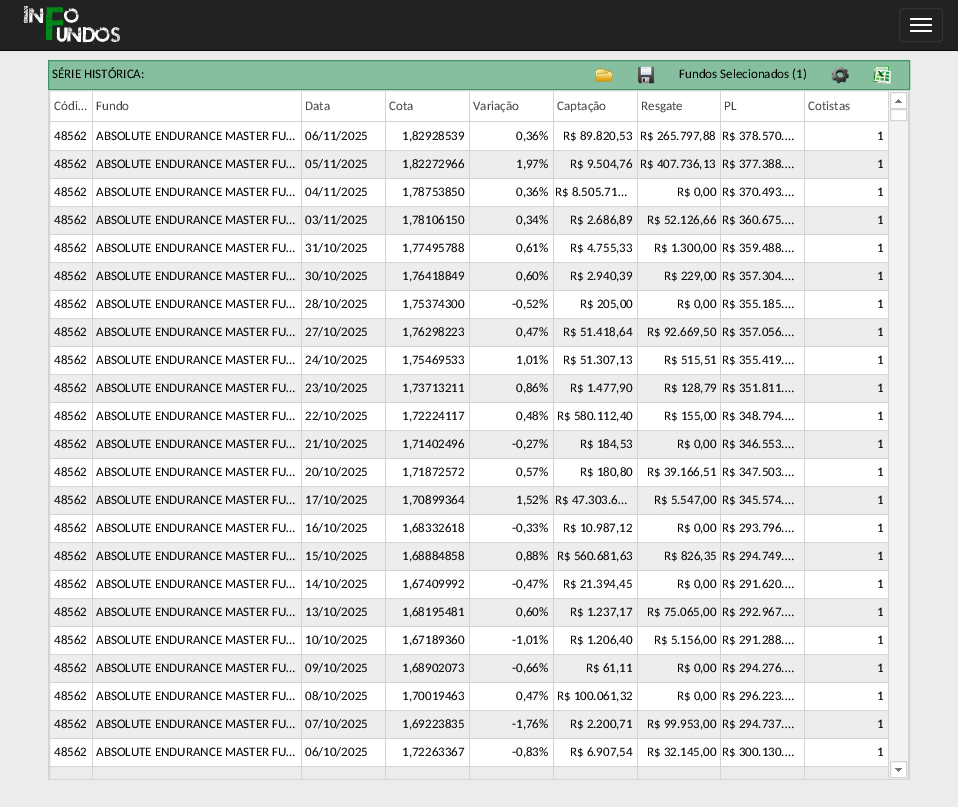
%!PS-Adobe-3.0
%%BoundingBox: 0 0 958 807
%%LanguageLevel: 3
%%Pages: 1
%%EndComments
%%BeginProlog
/rrect { 5 dict begin { /r /h /w /y /x } { exch def } forall
  x r add y moveto x w add y 2 copy h add r arct x w add y h add x 1 index r arct
  x y h add x y r arct x y 2 copy exch w add exch r arct closepath end } def
/drawimage { 5 dict begin { /h /w /y /x /name } { exch def } forall
  gsave x y translate w h scale
  w h 8 [w 0 0 h 0 0] name (r) file false 3 colorimage grestore end } def
%%EndProlog
%%BeginSetup
<< /PageSize [958 807] >> setpagedevice
%%EndSetup
%%Page: 1 1
0 807 translate 1 -1 scale
4 setmiterlimit
0.925 setgray
0 0 958 807 rectfill
0.133 setgray
0 0 958 50 rectfill
0.031 setgray
0 50 958 1 rectfill
(images/1.raw) 23 6 97 38 drawimage
0.2 setgray
899.5 8.5 43 33 3.5 rrect stroke
1 setgray
910 18 22 2 1 rrect fill
910 24 22 2 1 rrect fill
910 30 22 2 1 rrect fill
0.525 0.749 0.627 setrgbcolor
newpath 48.5 60.5 moveto 909.5 60.5 lineto 909.5 89.5 lineto 48.5 89.5 lineto closepath gsave fill grestore
0.259 0.576 0.4 setrgbcolor
stroke
(images/2.raw) 595 68 18 14 drawimage
(images/3.raw) 637 66 18 18 drawimage
(images/4.raw) 831 66 18 18 drawimage
(images/5.raw) 873 66 18 18 drawimage
1 setgray
50 91 838 675 rectfill
0.831 setgray
909 90 1 690 rectfill
48 779 862 1 rectfill
48 90 1 690 rectfill
gsave
49 90 860 689 rectclip
49.5 90.5 859 689 rectstroke
grestore
50 121 839 1 rectfill
92 91 1 30 rectfill
301 91 1 30 rectfill
385 91 1 30 rectfill
469 91 1 30 rectfill
553 91 1 30 rectfill
637 91 1 30 rectfill
720 91 1 30 rectfill
804 91 1 30 rectfill
888 91 1 30 rectfill
888 570 1 209 rectfill
888 374 1 197 rectfill
888 178 1 197 rectfill
888 122 1 57 rectfill
804 766 1 13 rectfill
804 766 85 1 rectfill
804 738 1 29 rectfill
804 738 85 1 rectfill
804 710 1 29 rectfill
804 710 85 1 rectfill
804 682 1 29 rectfill
804 682 85 1 rectfill
804 654 1 29 rectfill
804 654 85 1 rectfill
804 626 1 29 rectfill
804 626 85 1 rectfill
804 598 1 29 rectfill
804 598 85 1 rectfill
804 570 1 29 rectfill
804 570 85 1 rectfill
804 542 1 29 rectfill
804 542 85 1 rectfill
804 514 1 29 rectfill
804 514 85 1 rectfill
804 486 1 29 rectfill
804 486 85 1 rectfill
804 458 1 29 rectfill
804 458 85 1 rectfill
804 430 1 29 rectfill
804 430 85 1 rectfill
804 402 1 29 rectfill
804 402 85 1 rectfill
804 374 1 29 rectfill
804 374 85 1 rectfill
804 346 1 29 rectfill
804 346 85 1 rectfill
804 318 1 29 rectfill
804 318 85 1 rectfill
804 290 1 29 rectfill
804 290 85 1 rectfill
804 262 1 29 rectfill
804 262 85 1 rectfill
804 234 1 29 rectfill
804 234 85 1 rectfill
804 206 1 29 rectfill
804 206 85 1 rectfill
804 178 1 29 rectfill
804 178 85 1 rectfill
804 150 1 29 rectfill
804 150 85 1 rectfill
804 122 1 29 rectfill
720 766 1 13 rectfill
720 766 85 1 rectfill
720 738 1 29 rectfill
720 738 85 1 rectfill
720 710 1 29 rectfill
720 710 85 1 rectfill
720 682 1 29 rectfill
720 682 85 1 rectfill
720 654 1 29 rectfill
720 654 85 1 rectfill
720 626 1 29 rectfill
720 626 85 1 rectfill
720 598 1 29 rectfill
720 598 85 1 rectfill
720 570 1 29 rectfill
720 570 85 1 rectfill
720 542 1 29 rectfill
720 542 85 1 rectfill
720 514 1 29 rectfill
720 514 85 1 rectfill
720 486 1 29 rectfill
720 486 85 1 rectfill
720 458 1 29 rectfill
720 458 85 1 rectfill
720 430 1 29 rectfill
720 430 85 1 rectfill
720 402 1 29 rectfill
720 402 85 1 rectfill
720 374 1 29 rectfill
720 374 85 1 rectfill
720 346 1 29 rectfill
720 346 85 1 rectfill
720 318 1 29 rectfill
720 318 85 1 rectfill
720 290 1 29 rectfill
720 290 85 1 rectfill
720 262 1 29 rectfill
720 262 85 1 rectfill
720 234 1 29 rectfill
720 234 85 1 rectfill
720 206 1 29 rectfill
720 206 85 1 rectfill
720 178 1 29 rectfill
720 178 85 1 rectfill
720 150 1 29 rectfill
720 150 85 1 rectfill
720 122 1 29 rectfill
637 766 1 13 rectfill
637 766 84 1 rectfill
637 738 1 29 rectfill
637 738 84 1 rectfill
637 710 1 29 rectfill
637 710 84 1 rectfill
637 682 1 29 rectfill
637 682 84 1 rectfill
637 654 1 29 rectfill
637 654 84 1 rectfill
637 626 1 29 rectfill
637 626 84 1 rectfill
637 598 1 29 rectfill
637 598 84 1 rectfill
637 570 1 29 rectfill
637 570 84 1 rectfill
637 542 1 29 rectfill
637 542 84 1 rectfill
637 514 1 29 rectfill
637 514 84 1 rectfill
637 486 1 29 rectfill
637 486 84 1 rectfill
637 458 1 29 rectfill
637 458 84 1 rectfill
637 430 1 29 rectfill
637 430 84 1 rectfill
637 402 1 29 rectfill
637 402 84 1 rectfill
637 374 1 29 rectfill
637 374 84 1 rectfill
637 346 1 29 rectfill
637 346 84 1 rectfill
637 318 1 29 rectfill
637 318 84 1 rectfill
637 290 1 29 rectfill
637 290 84 1 rectfill
637 262 1 29 rectfill
637 262 84 1 rectfill
637 234 1 29 rectfill
637 234 84 1 rectfill
637 206 1 29 rectfill
637 206 84 1 rectfill
637 178 1 29 rectfill
637 178 84 1 rectfill
637 150 1 29 rectfill
637 150 84 1 rectfill
637 122 1 29 rectfill
553 766 1 13 rectfill
553 766 85 1 rectfill
553 738 1 29 rectfill
553 738 85 1 rectfill
553 710 1 29 rectfill
553 710 85 1 rectfill
553 682 1 29 rectfill
553 682 85 1 rectfill
553 654 1 29 rectfill
553 654 85 1 rectfill
553 626 1 29 rectfill
553 626 85 1 rectfill
553 598 1 29 rectfill
553 598 85 1 rectfill
553 570 1 29 rectfill
553 570 85 1 rectfill
553 542 1 29 rectfill
553 542 85 1 rectfill
553 514 1 29 rectfill
553 514 85 1 rectfill
553 486 1 29 rectfill
553 486 85 1 rectfill
553 458 1 29 rectfill
553 458 85 1 rectfill
553 430 1 29 rectfill
553 430 85 1 rectfill
553 402 1 29 rectfill
553 402 85 1 rectfill
553 374 1 29 rectfill
553 374 85 1 rectfill
553 346 1 29 rectfill
553 346 85 1 rectfill
553 318 1 29 rectfill
553 318 85 1 rectfill
553 290 1 29 rectfill
553 290 85 1 rectfill
553 262 1 29 rectfill
553 262 85 1 rectfill
553 234 1 29 rectfill
553 234 85 1 rectfill
553 206 1 29 rectfill
553 206 85 1 rectfill
553 178 1 29 rectfill
553 178 85 1 rectfill
553 150 1 29 rectfill
553 150 85 1 rectfill
553 122 1 29 rectfill
469 766 1 13 rectfill
469 766 85 1 rectfill
469 738 1 29 rectfill
469 738 85 1 rectfill
469 710 1 29 rectfill
469 710 85 1 rectfill
469 682 1 29 rectfill
469 682 85 1 rectfill
469 654 1 29 rectfill
469 654 85 1 rectfill
469 626 1 29 rectfill
469 626 85 1 rectfill
469 598 1 29 rectfill
469 598 85 1 rectfill
469 570 1 29 rectfill
469 570 85 1 rectfill
469 542 1 29 rectfill
469 542 85 1 rectfill
469 514 1 29 rectfill
469 514 85 1 rectfill
469 486 1 29 rectfill
469 486 85 1 rectfill
469 458 1 29 rectfill
469 458 85 1 rectfill
469 430 1 29 rectfill
469 430 85 1 rectfill
469 402 1 29 rectfill
469 402 85 1 rectfill
469 374 1 29 rectfill
469 374 85 1 rectfill
469 346 1 29 rectfill
469 346 85 1 rectfill
469 318 1 29 rectfill
469 318 85 1 rectfill
469 290 1 29 rectfill
469 290 85 1 rectfill
469 262 1 29 rectfill
469 262 85 1 rectfill
469 234 1 29 rectfill
469 234 85 1 rectfill
469 206 1 29 rectfill
469 206 85 1 rectfill
469 178 1 29 rectfill
469 178 85 1 rectfill
469 150 1 29 rectfill
469 150 85 1 rectfill
469 122 1 29 rectfill
385 766 1 13 rectfill
385 766 85 1 rectfill
385 738 1 29 rectfill
385 738 85 1 rectfill
385 710 1 29 rectfill
385 710 85 1 rectfill
385 682 1 29 rectfill
385 682 85 1 rectfill
385 654 1 29 rectfill
385 654 85 1 rectfill
385 626 1 29 rectfill
385 626 85 1 rectfill
385 598 1 29 rectfill
385 598 85 1 rectfill
385 570 1 29 rectfill
385 570 85 1 rectfill
385 542 1 29 rectfill
385 542 85 1 rectfill
385 514 1 29 rectfill
385 514 85 1 rectfill
385 486 1 29 rectfill
385 486 85 1 rectfill
385 458 1 29 rectfill
385 458 85 1 rectfill
385 430 1 29 rectfill
385 430 85 1 rectfill
385 402 1 29 rectfill
385 402 85 1 rectfill
385 374 1 29 rectfill
385 374 85 1 rectfill
385 346 1 29 rectfill
385 346 85 1 rectfill
385 318 1 29 rectfill
385 318 85 1 rectfill
385 290 1 29 rectfill
385 290 85 1 rectfill
385 262 1 29 rectfill
385 262 85 1 rectfill
385 234 1 29 rectfill
385 234 85 1 rectfill
385 206 1 29 rectfill
385 206 85 1 rectfill
385 178 1 29 rectfill
385 178 85 1 rectfill
385 150 1 29 rectfill
385 150 85 1 rectfill
385 122 1 29 rectfill
301 766 1 13 rectfill
301 766 85 1 rectfill
301 738 1 29 rectfill
301 738 85 1 rectfill
301 710 1 29 rectfill
301 710 85 1 rectfill
301 682 1 29 rectfill
301 682 85 1 rectfill
301 654 1 29 rectfill
301 654 85 1 rectfill
301 626 1 29 rectfill
301 626 85 1 rectfill
301 598 1 29 rectfill
301 598 85 1 rectfill
301 570 1 29 rectfill
301 570 85 1 rectfill
301 542 1 29 rectfill
301 542 85 1 rectfill
301 514 1 29 rectfill
301 514 85 1 rectfill
301 486 1 29 rectfill
301 486 85 1 rectfill
301 458 1 29 rectfill
301 458 85 1 rectfill
301 430 1 29 rectfill
301 430 85 1 rectfill
301 402 1 29 rectfill
301 402 85 1 rectfill
301 374 1 29 rectfill
301 374 85 1 rectfill
301 346 1 29 rectfill
301 346 85 1 rectfill
301 318 1 29 rectfill
301 318 85 1 rectfill
301 290 1 29 rectfill
301 290 85 1 rectfill
301 262 1 29 rectfill
301 262 85 1 rectfill
301 234 1 29 rectfill
301 234 85 1 rectfill
301 206 1 29 rectfill
301 206 85 1 rectfill
301 178 1 29 rectfill
301 178 85 1 rectfill
301 150 1 29 rectfill
301 150 85 1 rectfill
301 122 1 29 rectfill
92 766 1 13 rectfill
92 766 210 1 rectfill
92 738 1 29 rectfill
92 738 210 1 rectfill
92 710 1 29 rectfill
92 710 210 1 rectfill
92 682 1 29 rectfill
92 682 210 1 rectfill
92 654 1 29 rectfill
92 654 210 1 rectfill
92 626 1 29 rectfill
92 626 210 1 rectfill
92 598 1 29 rectfill
92 598 210 1 rectfill
92 570 1 29 rectfill
92 570 210 1 rectfill
92 542 1 29 rectfill
92 542 210 1 rectfill
92 514 1 29 rectfill
92 514 210 1 rectfill
92 486 1 29 rectfill
92 486 210 1 rectfill
92 458 1 29 rectfill
92 458 210 1 rectfill
92 430 1 29 rectfill
92 430 210 1 rectfill
92 402 1 29 rectfill
92 402 210 1 rectfill
92 374 1 29 rectfill
92 374 210 1 rectfill
92 346 1 29 rectfill
92 346 210 1 rectfill
92 318 1 29 rectfill
92 318 210 1 rectfill
92 290 1 29 rectfill
92 290 210 1 rectfill
92 262 1 29 rectfill
92 262 210 1 rectfill
92 234 1 29 rectfill
92 234 210 1 rectfill
92 206 1 29 rectfill
92 206 210 1 rectfill
92 178 1 29 rectfill
92 178 210 1 rectfill
92 150 1 29 rectfill
92 150 210 1 rectfill
92 122 1 29 rectfill
50 150 43 1 rectfill
0.929 setgray
50 151 42 27 rectfill
0.831 setgray
50 178 43 1 rectfill
0.929 setgray
93 151 208 27 rectfill
302 151 83 27 rectfill
386 151 83 27 rectfill
470 151 83 27 rectfill
554 151 83 27 rectfill
638 151 82 27 rectfill
721 151 83 27 rectfill
805 151 83 27 rectfill
0.831 setgray
50 206 43 1 rectfill
0.929 setgray
50 207 42 27 rectfill
0.831 setgray
50 234 43 1 rectfill
0.929 setgray
93 207 208 27 rectfill
302 207 83 27 rectfill
386 207 83 27 rectfill
470 207 83 27 rectfill
554 207 83 27 rectfill
638 207 82 27 rectfill
721 207 83 27 rectfill
805 207 83 27 rectfill
0.831 setgray
50 262 43 1 rectfill
0.929 setgray
50 263 42 27 rectfill
0.831 setgray
50 290 43 1 rectfill
0.929 setgray
93 263 208 27 rectfill
302 263 83 27 rectfill
386 263 83 27 rectfill
470 263 83 27 rectfill
554 263 83 27 rectfill
638 263 82 27 rectfill
721 263 83 27 rectfill
805 263 83 27 rectfill
0.831 setgray
50 318 43 1 rectfill
0.929 setgray
50 319 42 27 rectfill
0.831 setgray
50 346 43 1 rectfill
0.929 setgray
93 319 208 27 rectfill
302 319 83 27 rectfill
386 319 83 27 rectfill
470 319 83 27 rectfill
554 319 83 27 rectfill
638 319 82 27 rectfill
721 319 83 27 rectfill
805 319 83 27 rectfill
0.831 setgray
50 374 43 1 rectfill
0.929 setgray
50 375 42 27 rectfill
0.831 setgray
50 402 43 1 rectfill
0.929 setgray
93 375 208 27 rectfill
302 375 83 27 rectfill
386 375 83 27 rectfill
470 375 83 27 rectfill
554 375 83 27 rectfill
638 375 82 27 rectfill
721 375 83 27 rectfill
805 375 83 27 rectfill
0.831 setgray
50 430 43 1 rectfill
0.929 setgray
50 431 42 27 rectfill
0.831 setgray
50 458 43 1 rectfill
0.929 setgray
93 431 208 27 rectfill
302 431 83 27 rectfill
386 431 83 27 rectfill
470 431 83 27 rectfill
554 431 83 27 rectfill
638 431 82 27 rectfill
721 431 83 27 rectfill
805 431 83 27 rectfill
0.831 setgray
50 486 43 1 rectfill
0.929 setgray
50 487 42 27 rectfill
0.831 setgray
50 514 43 1 rectfill
0.929 setgray
93 487 208 27 rectfill
302 487 83 27 rectfill
386 487 83 27 rectfill
470 487 83 27 rectfill
554 487 83 27 rectfill
638 487 82 27 rectfill
721 487 83 27 rectfill
805 487 83 27 rectfill
0.831 setgray
50 542 43 1 rectfill
0.929 setgray
50 543 42 27 rectfill
0.831 setgray
50 570 43 1 rectfill
0.929 setgray
93 543 208 27 rectfill
302 543 83 27 rectfill
386 543 83 27 rectfill
470 543 83 27 rectfill
554 543 83 27 rectfill
638 543 82 27 rectfill
721 543 83 27 rectfill
805 543 83 27 rectfill
0.831 setgray
50 598 43 1 rectfill
0.929 setgray
50 599 42 27 rectfill
0.831 setgray
50 626 43 1 rectfill
0.929 setgray
93 599 208 27 rectfill
302 599 83 27 rectfill
386 599 83 27 rectfill
470 599 83 27 rectfill
554 599 83 27 rectfill
638 599 82 27 rectfill
721 599 83 27 rectfill
805 599 83 27 rectfill
0.831 setgray
50 654 43 1 rectfill
0.929 setgray
50 655 42 27 rectfill
0.831 setgray
50 682 43 1 rectfill
0.929 setgray
93 655 208 27 rectfill
302 655 83 27 rectfill
386 655 83 27 rectfill
470 655 83 27 rectfill
554 655 83 27 rectfill
638 655 82 27 rectfill
721 655 83 27 rectfill
805 655 83 27 rectfill
0.831 setgray
50 710 43 1 rectfill
0.929 setgray
50 711 42 27 rectfill
0.831 setgray
50 738 43 1 rectfill
0.929 setgray
93 711 208 27 rectfill
302 711 83 27 rectfill
386 711 83 27 rectfill
470 711 83 27 rectfill
554 711 83 27 rectfill
638 711 82 27 rectfill
721 711 83 27 rectfill
805 711 83 27 rectfill
0.831 setgray
50 766 43 1 rectfill
0.953 setgray
889 91 19 688 rectfill
1 setgray
newpath 890.5 92.5 moveto 906.5 92.5 lineto 906.5 108.5 lineto 890.5 108.5 lineto closepath gsave fill grestore
0.831 setgray
stroke
(images/6.raw) 895 99 7 4 drawimage
1 setgray
newpath 890.5 109.5 moveto 906.5 109.5 lineto 906.5 120.5 lineto 890.5 120.5 lineto closepath gsave fill grestore
0.831 setgray
stroke
1 setgray
newpath 890.5 761.5 moveto 906.5 761.5 lineto 906.5 777.5 lineto 890.5 777.5 lineto closepath gsave fill grestore
0.831 setgray
stroke
(images/7.raw) 895 768 7 4 drawimage
/Carlito-Regular [13 0 0 -13 0 0] selectfont
0 setgray
52 78 moveto (SÉRIE HISTÓRICA:) show
679 78 moveto (Fundos Selecionados \(1\)) show
0.267 setgray
54 110 moveto (Códi…) show
96 110 moveto (Fundo) show
305 110 moveto (Data) show
389 110 moveto (Cota) show
473 110 moveto (Variação) show
557 110 moveto (Captação) show
641 110 moveto (Resgate) show
724 110 moveto (PL) show
808 110 moveto (Cotistas) show
0 setgray
54 140 moveto (48562) show
96 140 moveto (ABSOLUTE ENDURANCE MASTER FU…) show
305 140 moveto (06/11/2025) show
402 140 moveto (1,82928539) show
516 140 moveto (0,36%) show
563 140 moveto (R$ 89.820,53) show
640 140 moveto (R$ 265.797,88) show
722 140 moveto (R$ 378.570.…) show
877 140 moveto (1) show
54 168 moveto (48562) show
96 168 moveto (ABSOLUTE ENDURANCE MASTER FU…) show
305 168 moveto (05/11/2025) show
402 168 moveto (1,82272966) show
516 168 moveto (1,97%) show
570 168 moveto (R$ 9.504,76) show
640 168 moveto (R$ 407.736,13) show
722 168 moveto (R$ 377.388.…) show
877 168 moveto (1) show
54 196 moveto (48562) show
96 196 moveto (ABSOLUTE ENDURANCE MASTER FU…) show
305 196 moveto (04/11/2025) show
402 196 moveto (1,78753850) show
516 196 moveto (0,36%) show
555 196 moveto (R$ 8.505.71…) show
677 196 moveto (R$ 0,00) show
722 196 moveto (R$ 370.493.…) show
877 196 moveto (1) show
54 224 moveto (48562) show
96 224 moveto (ABSOLUTE ENDURANCE MASTER FU…) show
305 224 moveto (03/11/2025) show
402 224 moveto (1,78106150) show
516 224 moveto (0,34%) show
570 224 moveto (R$ 2.686,89) show
647 224 moveto (R$ 52.126,66) show
722 224 moveto (R$ 360.675.…) show
877 224 moveto (1) show
54 252 moveto (48562) show
96 252 moveto (ABSOLUTE ENDURANCE MASTER FU…) show
305 252 moveto (31/10/2025) show
402 252 moveto (1,77495788) show
516 252 moveto (0,61%) show
570 252 moveto (R$ 4.755,33) show
654 252 moveto (R$ 1.300,00) show
722 252 moveto (R$ 359.488.…) show
877 252 moveto (1) show
54 280 moveto (48562) show
96 280 moveto (ABSOLUTE ENDURANCE MASTER FU…) show
305 280 moveto (30/10/2025) show
402 280 moveto (1,76418849) show
516 280 moveto (0,60%) show
570 280 moveto (R$ 2.940,39) show
664 280 moveto (R$ 229,00) show
722 280 moveto (R$ 357.304.…) show
877 280 moveto (1) show
54 308 moveto (48562) show
96 308 moveto (ABSOLUTE ENDURANCE MASTER FU…) show
305 308 moveto (28/10/2025) show
402 308 moveto (1,75374300) show
512 308 moveto (-0,52%) show
580 308 moveto (R$ 205,00) show
677 308 moveto (R$ 0,00) show
722 308 moveto (R$ 355.185.…) show
877 308 moveto (1) show
54 336 moveto (48562) show
96 336 moveto (ABSOLUTE ENDURANCE MASTER FU…) show
305 336 moveto (27/10/2025) show
402 336 moveto (1,76298223) show
516 336 moveto (0,47%) show
563 336 moveto (R$ 51.418,64) show
647 336 moveto (R$ 92.669,50) show
722 336 moveto (R$ 357.056.…) show
877 336 moveto (1) show
54 364 moveto (48562) show
96 364 moveto (ABSOLUTE ENDURANCE MASTER FU…) show
305 364 moveto (24/10/2025) show
402 364 moveto (1,75469533) show
516 364 moveto (1,01%) show
563 364 moveto (R$ 51.307,13) show
664 364 moveto (R$ 515,51) show
722 364 moveto (R$ 355.419.…) show
877 364 moveto (1) show
54 392 moveto (48562) show
96 392 moveto (ABSOLUTE ENDURANCE MASTER FU…) show
305 392 moveto (23/10/2025) show
402 392 moveto (1,73713211) show
516 392 moveto (0,86%) show
570 392 moveto (R$ 1.477,90) show
664 392 moveto (R$ 128,79) show
722 392 moveto (R$ 351.811.…) show
877 392 moveto (1) show
54 420 moveto (48562) show
96 420 moveto (ABSOLUTE ENDURANCE MASTER FU…) show
305 420 moveto (22/10/2025) show
402 420 moveto (1,72224117) show
516 420 moveto (0,48%) show
557 420 moveto (R$ 580.112,40) show
664 420 moveto (R$ 155,00) show
722 420 moveto (R$ 348.794.…) show
877 420 moveto (1) show
54 448 moveto (48562) show
96 448 moveto (ABSOLUTE ENDURANCE MASTER FU…) show
305 448 moveto (21/10/2025) show
402 448 moveto (1,71402496) show
512 448 moveto (-0,27%) show
580 448 moveto (R$ 184,53) show
677 448 moveto (R$ 0,00) show
722 448 moveto (R$ 346.553.…) show
877 448 moveto (1) show
54 476 moveto (48562) show
96 476 moveto (ABSOLUTE ENDURANCE MASTER FU…) show
305 476 moveto (20/10/2025) show
402 476 moveto (1,71872572) show
516 476 moveto (0,57%) show
580 476 moveto (R$ 180,80) show
647 476 moveto (R$ 39.166,51) show
722 476 moveto (R$ 347.503.…) show
877 476 moveto (1) show
54 504 moveto (48562) show
96 504 moveto (ABSOLUTE ENDURANCE MASTER FU…) show
305 504 moveto (17/10/2025) show
402 504 moveto (1,70899364) show
516 504 moveto (1,52%) show
555 504 moveto (R$ 47.303.6…) show
654 504 moveto (R$ 5.547,00) show
722 504 moveto (R$ 345.574.…) show
877 504 moveto (1) show
54 532 moveto (48562) show
96 532 moveto (ABSOLUTE ENDURANCE MASTER FU…) show
305 532 moveto (16/10/2025) show
402 532 moveto (1,68332618) show
512 532 moveto (-0,33%) show
563 532 moveto (R$ 10.987,12) show
677 532 moveto (R$ 0,00) show
722 532 moveto (R$ 293.796.…) show
877 532 moveto (1) show
54 560 moveto (48562) show
96 560 moveto (ABSOLUTE ENDURANCE MASTER FU…) show
305 560 moveto (15/10/2025) show
402 560 moveto (1,68884858) show
516 560 moveto (0,88%) show
557 560 moveto (R$ 560.681,63) show
664 560 moveto (R$ 826,35) show
722 560 moveto (R$ 294.749.…) show
877 560 moveto (1) show
54 588 moveto (48562) show
96 588 moveto (ABSOLUTE ENDURANCE MASTER FU…) show
305 588 moveto (14/10/2025) show
402 588 moveto (1,67409992) show
512 588 moveto (-0,47%) show
563 588 moveto (R$ 21.394,45) show
677 588 moveto (R$ 0,00) show
722 588 moveto (R$ 291.620.…) show
877 588 moveto (1) show
54 616 moveto (48562) show
96 616 moveto (ABSOLUTE ENDURANCE MASTER FU…) show
305 616 moveto (13/10/2025) show
402 616 moveto (1,68195481) show
516 616 moveto (0,60%) show
570 616 moveto (R$ 1.237,17) show
647 616 moveto (R$ 75.065,00) show
722 616 moveto (R$ 292.967.…) show
877 616 moveto (1) show
54 644 moveto (48562) show
96 644 moveto (ABSOLUTE ENDURANCE MASTER FU…) show
305 644 moveto (10/10/2025) show
402 644 moveto (1,67189360) show
512 644 moveto (-1,01%) show
570 644 moveto (R$ 1.206,40) show
654 644 moveto (R$ 5.156,00) show
722 644 moveto (R$ 291.288.…) show
877 644 moveto (1) show
54 672 moveto (48562) show
96 672 moveto (ABSOLUTE ENDURANCE MASTER FU…) show
305 672 moveto (09/10/2025) show
402 672 moveto (1,68902073) show
512 672 moveto (-0,66%) show
586 672 moveto (R$ 61,11) show
677 672 moveto (R$ 0,00) show
722 672 moveto (R$ 294.276.…) show
877 672 moveto (1) show
54 700 moveto (48562) show
96 700 moveto (ABSOLUTE ENDURANCE MASTER FU…) show
305 700 moveto (08/10/2025) show
402 700 moveto (1,70019463) show
516 700 moveto (0,47%) show
557 700 moveto (R$ 100.061,32) show
677 700 moveto (R$ 0,00) show
722 700 moveto (R$ 296.223.…) show
877 700 moveto (1) show
54 728 moveto (48562) show
96 728 moveto (ABSOLUTE ENDURANCE MASTER FU…) show
305 728 moveto (07/10/2025) show
402 728 moveto (1,69223835) show
512 728 moveto (-1,76%) show
570 728 moveto (R$ 2.200,71) show
647 728 moveto (R$ 99.953,00) show
722 728 moveto (R$ 294.737.…) show
877 728 moveto (1) show
54 756 moveto (48562) show
96 756 moveto (ABSOLUTE ENDURANCE MASTER FU…) show
305 756 moveto (06/10/2025) show
402 756 moveto (1,72263367) show
512 756 moveto (-0,83%) show
570 756 moveto (R$ 6.907,54) show
647 756 moveto (R$ 32.145,00) show
722 756 moveto (R$ 300.130.…) show
877 756 moveto (1) show
showpage
%%EOF
